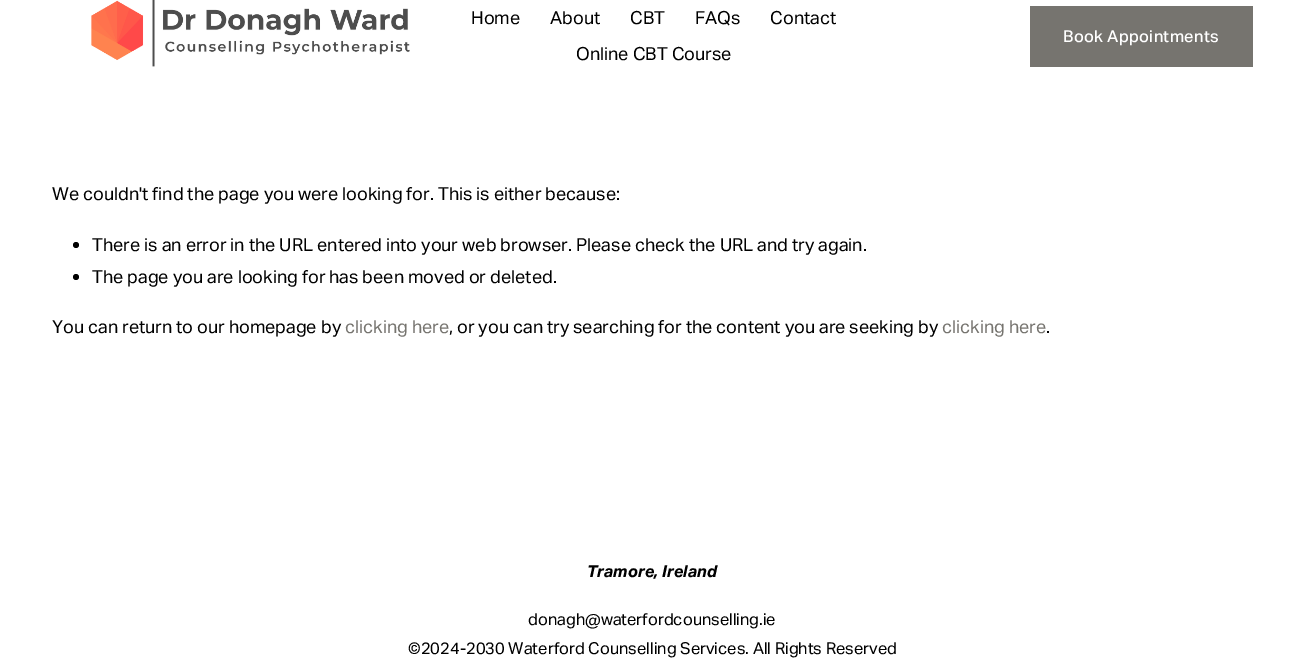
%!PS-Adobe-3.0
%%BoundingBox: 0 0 1305 664
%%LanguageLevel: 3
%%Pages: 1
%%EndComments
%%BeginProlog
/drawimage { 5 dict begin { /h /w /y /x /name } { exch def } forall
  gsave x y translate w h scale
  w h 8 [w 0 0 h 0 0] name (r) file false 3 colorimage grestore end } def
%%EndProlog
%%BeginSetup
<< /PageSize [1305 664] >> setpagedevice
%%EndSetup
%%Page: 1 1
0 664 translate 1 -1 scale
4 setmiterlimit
1 setgray
0 0 1305 664 rectfill
(images/1.raw) 91 0 319 67 drawimage
0.463 0.455 0.435 setrgbcolor
1030 6 223 61 rectfill
0 setgray
newpath 76 245 3 0 360 arc closepath fill
newpath 76 277 3 0 360 arc closepath fill
/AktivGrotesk-Regular [18 0 0 -18 0 0] selectfont
471 24 moveto (Home) show
550 24 moveto (About) show
630 24 moveto (CBT) show
695 24 moveto (FAQs) show
770 24 moveto (Contact) show
576 60 moveto (Online CBT Course) show
/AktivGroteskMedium-Medium [16.4 0 0 -16.4 0 0] selectfont
1 setgray
1063 42 moveto 0.3 0 (Book Appointments) ashow
/AktivGrotesk-Regular [18 0 0 -18 0 0] selectfont
0 setgray
52 200 moveto (We couldn't find the page you were looking for. This is either because:) show
92 251 moveto (There is an error in the URL entered into your web browser. Please check the URL and try again.) show
92 283 moveto (The page you are looking for has been moved or deleted.) show
52 333 moveto (You can return to our homepage by) show
0.463 0.455 0.435 setrgbcolor
345 333 moveto (clicking here) show
0 setgray
449 333 moveto (, or you can try searching for the content you are seeking by) show
0.463 0.455 0.435 setrgbcolor
942 333 moveto (clicking here) show
0 setgray
1046 333 moveto (.) show
/AktivGrotesk-BoldItalic [16.4 0 0 -16.4 0 0] selectfont
587 577 moveto (Tramore, Ireland) show
/AktivGrotesk-Regular [16.4 0 0 -16.4 0 0] selectfont
528 625 moveto (donagh@waterfordcounselling.ie) show
408 654 moveto (©2024-2030 Waterford Counselling Services. All Rights Reserved) show
showpage
%%EOF
